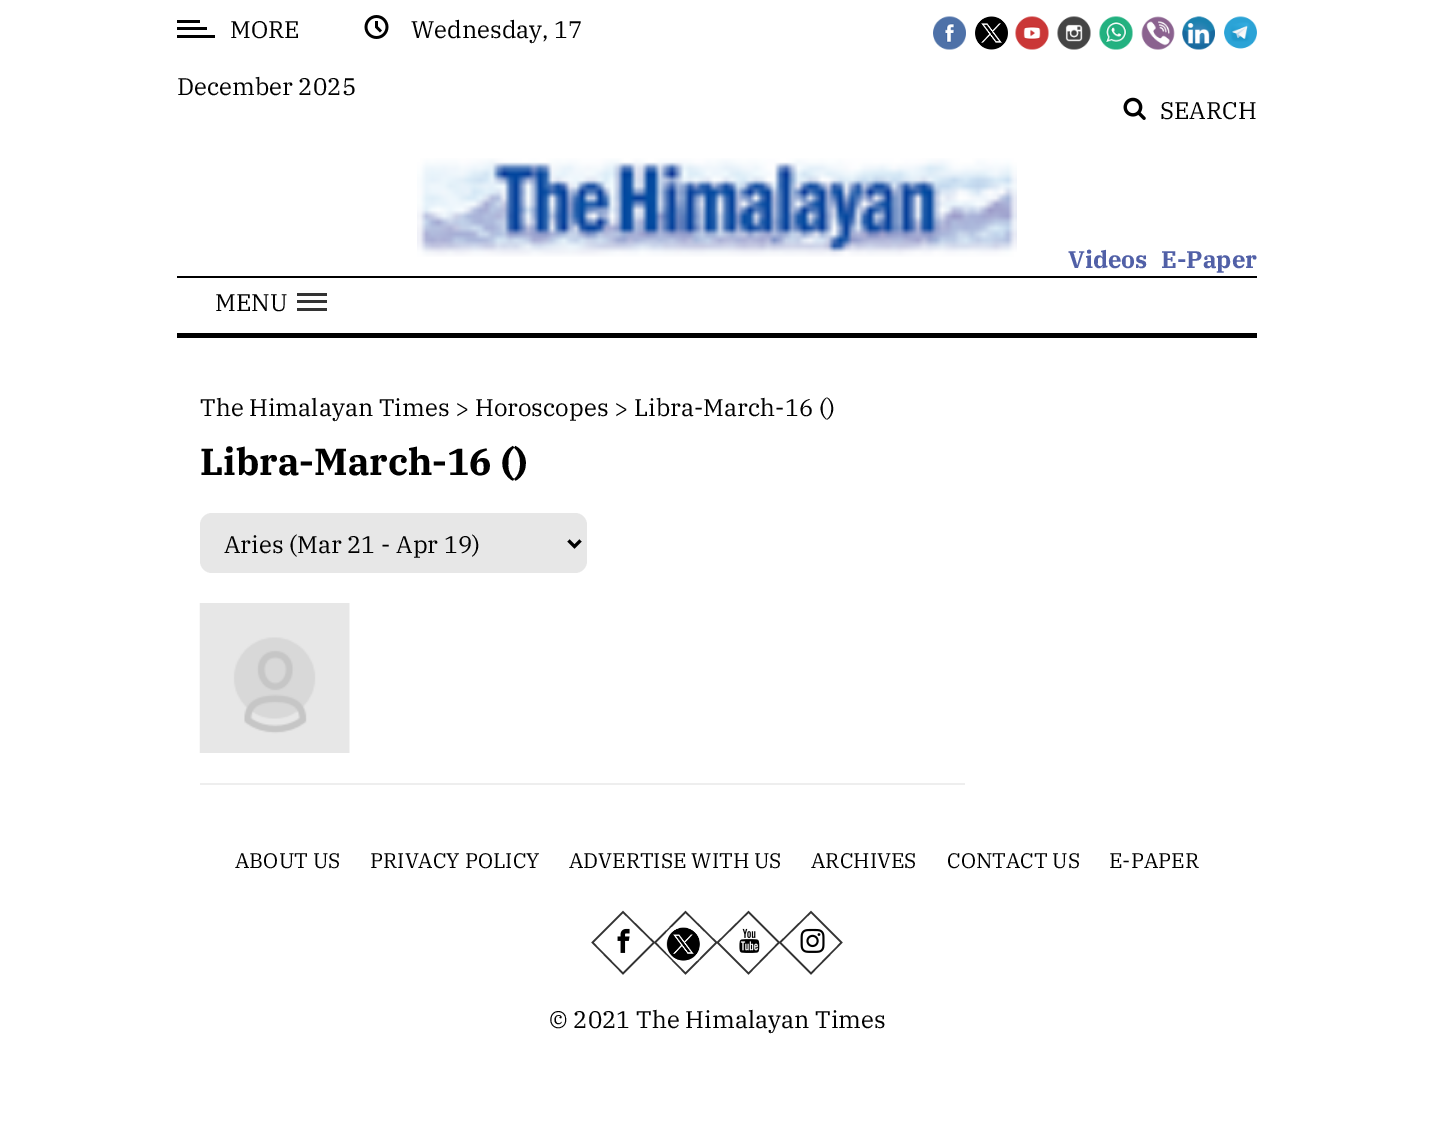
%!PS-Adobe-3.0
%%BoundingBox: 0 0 1433 1146
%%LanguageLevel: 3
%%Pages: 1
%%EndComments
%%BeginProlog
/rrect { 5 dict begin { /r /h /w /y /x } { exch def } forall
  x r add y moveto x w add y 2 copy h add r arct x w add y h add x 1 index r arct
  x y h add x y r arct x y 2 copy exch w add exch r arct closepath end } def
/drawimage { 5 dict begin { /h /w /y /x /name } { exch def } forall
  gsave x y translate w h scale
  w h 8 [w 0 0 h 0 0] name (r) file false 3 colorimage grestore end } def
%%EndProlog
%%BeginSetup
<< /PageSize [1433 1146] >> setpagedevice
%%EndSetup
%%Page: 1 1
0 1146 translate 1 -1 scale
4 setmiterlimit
1 setgray
0 0 1433 1146 rectfill
0 setgray
177 35 38 3 rectfill
177 20 23 3 rectfill
177 27 30 3 rectfill
(images/1.raw) 364 15 25 24 drawimage
(images/2.raw) 933 16 33 34 drawimage
(images/3.raw) 975 16 33 34 drawimage
(images/4.raw) 1015 16 34 34 drawimage
(images/5.raw) 1057 16 34 34 drawimage
(images/6.raw) 1099 16 34 34 drawimage
(images/7.raw) 1141 16 34 34 drawimage
(images/8.raw) 1182 16 33 34 drawimage
(images/9.raw) 1224 16 33 33 drawimage
(images/10.raw) 1123 97 23 23 drawimage
177 276 1080 2 rectfill
(images/11.raw) 417 158 600 99 drawimage
177 333 1080 5 rectfill
0.2 setgray
297 293 30 3 rectfill
297 300 30 3 rectfill
297 308 30 3 rectfill
0.906 setgray
200 513 387 60 12 rrect fill
0 setgray
3 setlinewidth
newpath 568.5 540.5 moveto 574.5 546.5 lineto 580.5 540.5 lineto stroke
0.933 setgray
200 783 765 2 rectfill
(images/12.raw) 199 603 151 150 drawimage
0.2 setgray
1.5 setlinewidth
newpath 623 912 moveto 654 942.5 lineto 623 973.5 lineto 592.5 942.5 lineto closepath stroke
(images/13.raw) 617 928 13 25 drawimage
newpath 685.5 912 moveto 716.5 942.5 lineto 685.5 973.5 lineto 655 942.5 lineto closepath stroke
(images/14.raw) 666 927 34 34 drawimage
newpath 748.5 912 moveto 779 942.5 lineto 748.5 973.5 lineto 717.5 942.5 lineto closepath stroke
(images/15.raw) 739 928 21 25 drawimage
newpath 811 912 moveto 841.5 942.5 lineto 811 973.5 lineto 780 942.5 lineto closepath stroke
(images/16.raw) 800 928 25 25 drawimage
/IBMPlexSerif-Regular [24 0 0 -24 0 0] selectfont
0 setgray
230 38 moveto (MORE) show
411 38 moveto (Wednesday, 17) show
177 95 moveto (December 2025) show
1160 119 moveto (SEARCH) show
/IBMPlexSerif-Bold [24 0 0 -24 0 0] selectfont
0.318 0.376 0.655 setrgbcolor
1068 268 moveto (Videos) show
1161 268 moveto (E-Paper) show
/IBMPlexSerif-Regular [24 0 0 -24 0 0] selectfont
0 setgray
215 311 moveto (MENU) show
200 416 moveto (The Himalayan Times > Horoscopes > Libra-March-16 \(\)) show
/IBMPlexSerif-Bold [37.5 0 0 -37.5 0 0] selectfont
200 475 moveto (Libra-March-16 \(\)) show
/IBMPlexSerif-Regular [24 0 0 -24 0 0] selectfont
224 553 moveto (Aries \(Mar 21 - Apr 19\)) show
/IBMPlexSerif-Regular [21 0 0 -21 0 0] selectfont
235 868 moveto (ABOUT US) show
370 868 moveto (PRIVACY POLICY) show
569 868 moveto (ADVERTISE WITH US) show
811 868 moveto (ARCHIVES) show
947 868 moveto (CONTACT US) show
1109 868 moveto (E-PAPER) show
/IBMPlexSerif-Regular [24 0 0 -24 0 0] selectfont
549 1028 moveto (© 2021 The Himalayan Times) show
showpage
%%EOF
